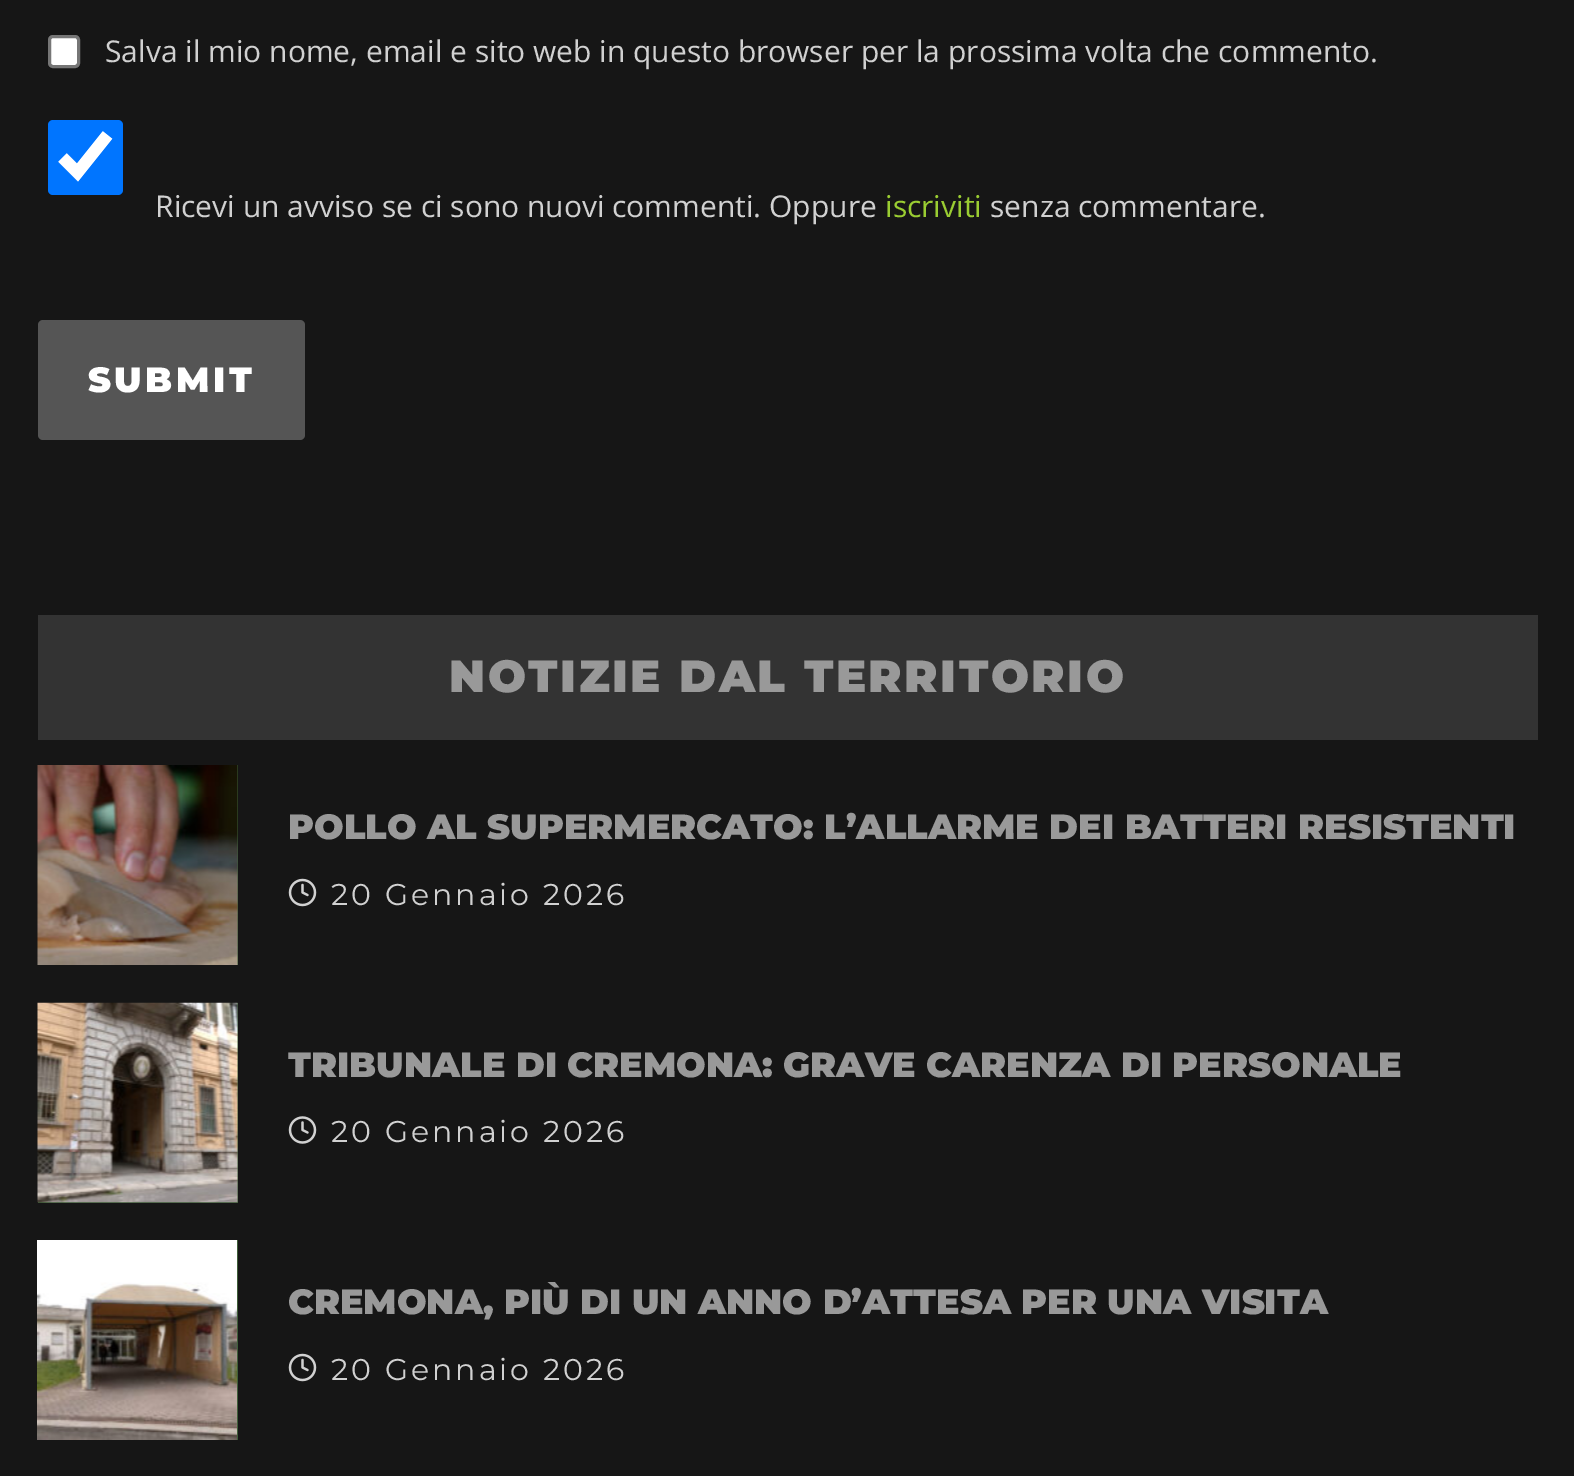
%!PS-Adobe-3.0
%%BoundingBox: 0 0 1574 1476
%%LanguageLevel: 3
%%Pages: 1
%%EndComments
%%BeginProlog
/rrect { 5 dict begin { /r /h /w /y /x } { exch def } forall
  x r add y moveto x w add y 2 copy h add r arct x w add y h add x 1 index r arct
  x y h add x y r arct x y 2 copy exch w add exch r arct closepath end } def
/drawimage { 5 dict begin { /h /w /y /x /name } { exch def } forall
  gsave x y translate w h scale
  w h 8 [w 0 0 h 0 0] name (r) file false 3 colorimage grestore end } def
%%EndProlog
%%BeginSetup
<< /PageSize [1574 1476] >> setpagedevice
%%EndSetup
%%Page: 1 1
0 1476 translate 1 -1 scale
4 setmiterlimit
0.086 setgray
0 0 1574 1476 rectfill
1 setgray
49.5 36.5 29 30 3.5 rrect gsave fill grestore
0.463 setgray
3 setlinewidth
stroke
0 0.459 1 setrgbcolor
48 120 75 75 5 rrect fill
1 setgray
12 setlinewidth
newpath 62.5 157.5 moveto 77.5 172.5 lineto 107.5 135 lineto stroke
0.333 setgray
38 320 267 120 5 rrect fill
0.2 setgray
38 615 1500 125 rectfill
0.247 0.369 0.224 setrgbcolor
237 765 1 200 rectfill
(images/1.raw) 37 765 201 200 drawimage
(images/2.raw) 288 878 29 29 drawimage
38 1003 200 200 rectfill
(images/3.raw) 37 1002 201 201 drawimage
(images/4.raw) 288 1116 29 28 drawimage
237 1240 1 200 rectfill
(images/5.raw) 37 1240 200 200 drawimage
(images/2.raw) 288 1353 29 29 drawimage
/OpenSans-Regular [30 0 0 -30 0 0] selectfont
0.82 setgray
105 62 moveto (Salva il mio nome, email e sito web in questo browser per la prossima volta che commento.) show
155 217 moveto (Ricevi un avviso se ci sono nuovi commenti. Oppure) show
0.604 0.804 0.196 setrgbcolor
885 217 moveto (iscriviti) show
0.82 setgray
990 217 moveto (senza commentare.) show
/Montserrat-Black [35 0 0 -35 0 0] selectfont
1 setgray
88 392 moveto 3.5 0 (SUBMIT) ashow
/Montserrat-Black [45 0 0 -45 0 0] selectfont
0.6 setgray
449 692 moveto 2.5 0 (NOTIZIE DAL TERRITORIO) ashow
/Montserrat-Black [35 0 0 -35 0 0] selectfont
288 839 moveto (POLLO AL SUPERMERCATO: L’ALLARME DEI BATTERI RESISTENTI) show
/Montserrat-Regular [30 0 0 -30 0 0] selectfont
0.82 setgray
331 905 moveto 3 0 (20 Gennaio 2026) ashow
/Montserrat-Black [35 0 0 -35 0 0] selectfont
0.6 setgray
288 1077 moveto (TRIBUNALE DI CREMONA: GRAVE CARENZA DI PERSONALE) show
/Montserrat-Regular [30 0 0 -30 0 0] selectfont
0.82 setgray
331 1142 moveto 3 0 (20 Gennaio 2026) ashow
/Montserrat-Black [35 0 0 -35 0 0] selectfont
0.6 setgray
288 1314 moveto (CREMONA, PIÙ DI UN ANNO D’ATTESA PER UNA VISITA) show
/Montserrat-Regular [30 0 0 -30 0 0] selectfont
0.82 setgray
331 1380 moveto 3 0 (20 Gennaio 2026) ashow
showpage
%%EOF
